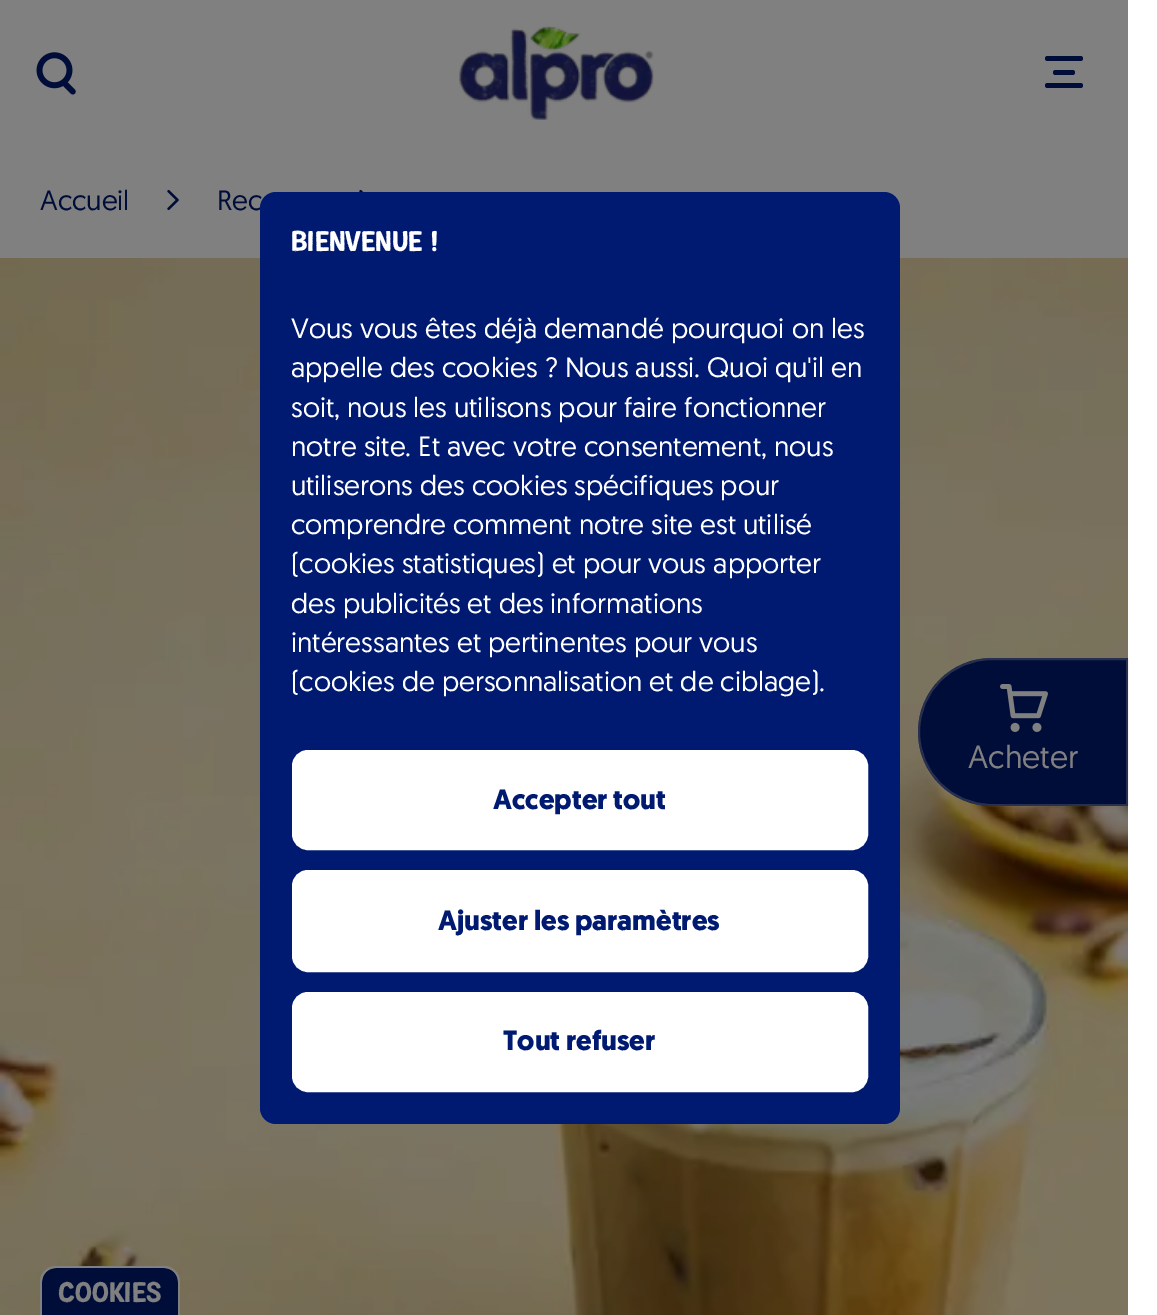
%!PS-Adobe-3.0
%%BoundingBox: 0 0 1157 1315
%%LanguageLevel: 3
%%Pages: 1
%%EndComments
%%BeginProlog
/setalpha { dup .setfillconstantalpha .setstrokeconstantalpha } def
/rrect { 5 dict begin { /r /h /w /y /x } { exch def } forall
  x r add y moveto x w add y 2 copy h add r arct x w add y h add x 1 index r arct
  x y h add x y r arct x y 2 copy exch w add exch r arct closepath end } def
/drawimage { 5 dict begin { /h /w /y /x /name } { exch def } forall
  gsave x y translate w h scale
  w h 8 [w 0 0 h 0 0] name (r) file false 3 colorimage grestore end } def
%%EndProlog
%%BeginSetup
<< /PageSize [1157 1315] /PageUsesTransparency true >> setpagedevice
%%EndSetup
%%Page: 1 1
0 .pushpdf14devicefilter
0 1315 translate 1 -1 scale
4 setmiterlimit
1 setgray
0 0 1157 1315 rectfill
0.502 setgray
0 0 1128 258 rectfill
(images/1.raw) 36 52 40 43 drawimage
(images/2.raw) 459 26 195 94 drawimage
0 0.051 0.224 setrgbcolor
1045 56 38 5 2.5 rrect fill
1053 70 22 5 2.5 rrect fill
1045 83 38 5 2.5 rrect fill
(images/3.raw) 167 189 12 22 drawimage
(images/4.raw) 359 189 5 3 drawimage
(images/5.raw) 0 258 1128 1057 drawimage
newpath 992 658 moveto 1128 658 lineto 1128 806 lineto 992 806 lineto 951 806 918 773 918 732 curveto 918 691 951 658 992 658 curveto closepath fill
0.3 setalpha
0.502 setgray
2 setlinewidth
newpath 992 659 moveto 1127 659 lineto 1127 805 lineto 992 805 lineto 951.5 805 919 772.5 919 732 curveto 919 691.5 951.5 659 992 659 curveto closepath stroke
1 setalpha
(images/6.raw) 1000 684 48 48 drawimage
0 0.051 0.224 setrgbcolor
newpath 56 1268 moveto 164 1268 lineto 171.5 1268 178 1274.5 178 1282 curveto 178 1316 lineto 42 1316 lineto 42 1282 lineto 42 1274.5 48.5 1268 56 1268 curveto closepath fill
0.502 setgray
newpath 56 1266 moveto 164 1266 lineto 173 1266 180 1273 180 1282 curveto 180 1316 lineto 40 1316 lineto 40 1282 lineto 40 1273 47 1266 56 1266 curveto closepath 56 1268 moveto 164 1268 lineto 172 1268 178 1274 178 1282 curveto 178 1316 lineto 42 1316 lineto 42 1282 lineto 42 1274 48 1268 56 1268 curveto closepath eofill
/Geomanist-Regular [28 0 0 -28 0 0] selectfont
0 0.051 0.224 setrgbcolor
40 210 moveto (Accueil) show
217 210 moveto (Rec) show
/Geomanist-Regular [32 0 0 -32 0 0] selectfont
0.502 setgray
968 768 moveto (Acheter) show
0 0.102 0.443 setrgbcolor
260 192 640 932 16 rrect fill
/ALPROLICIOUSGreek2-Regular [28 0 0 -28 0 0] selectfont
1 setgray
291 251 moveto (Bienvenue !) show
/Geomanist-Regular [28 0 0 -28 0 0] selectfont
291 338 moveto (Vous vous êtes déjà demandé pourquoi on les) show
291 377 moveto (appelle des cookies ? Nous aussi. Quoi qu'il en) show
291 417 moveto (soit, nous les utilisons pour faire fonctionner) show
291 456 moveto (notre site. Et avec votre consentement, nous) show
291 495 moveto (utiliserons des cookies spécifiques pour) show
291 534 moveto (comprendre comment notre site est utilisé) show
291 573 moveto (\(cookies statistiques\) et pour vous apporter) show
291 613 moveto (des publicités et des informations) show
291 652 moveto (intéressantes et pertinentes pour vous) show
291 691 moveto (\(cookies de personnalisation et de ciblage\).) show
293 751 574 98 15 rrect gsave fill grestore
stroke
/Geomanist-Bold [28 0 0 -28 0 0] selectfont
0 0.102 0.443 setrgbcolor
493 809 moveto (Accepter tout) show
1 setgray
293 871 574 100 15 rrect gsave fill grestore
stroke
0 0.102 0.443 setrgbcolor
438 930 moveto (Ajuster les paramètres) show
1 setgray
293 993 574 98 15 rrect gsave fill grestore
stroke
0 0.102 0.443 setrgbcolor
503 1050 moveto (Tout refuser) show
/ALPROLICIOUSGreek-Regular [28 0 0 -28 0 0] selectfont
0.502 setgray
58 1302 moveto (Cookies) show
.poppdf14devicefilter showpage
%%EOF
